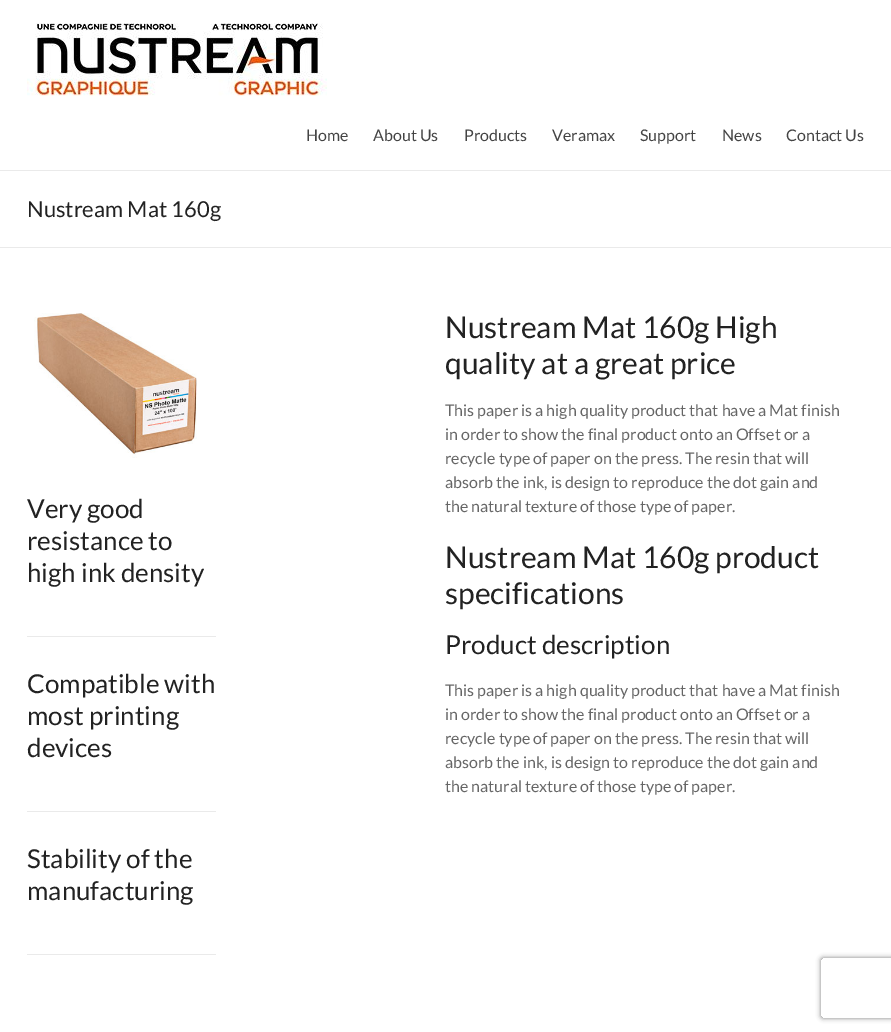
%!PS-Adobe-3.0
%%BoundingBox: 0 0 891 1032
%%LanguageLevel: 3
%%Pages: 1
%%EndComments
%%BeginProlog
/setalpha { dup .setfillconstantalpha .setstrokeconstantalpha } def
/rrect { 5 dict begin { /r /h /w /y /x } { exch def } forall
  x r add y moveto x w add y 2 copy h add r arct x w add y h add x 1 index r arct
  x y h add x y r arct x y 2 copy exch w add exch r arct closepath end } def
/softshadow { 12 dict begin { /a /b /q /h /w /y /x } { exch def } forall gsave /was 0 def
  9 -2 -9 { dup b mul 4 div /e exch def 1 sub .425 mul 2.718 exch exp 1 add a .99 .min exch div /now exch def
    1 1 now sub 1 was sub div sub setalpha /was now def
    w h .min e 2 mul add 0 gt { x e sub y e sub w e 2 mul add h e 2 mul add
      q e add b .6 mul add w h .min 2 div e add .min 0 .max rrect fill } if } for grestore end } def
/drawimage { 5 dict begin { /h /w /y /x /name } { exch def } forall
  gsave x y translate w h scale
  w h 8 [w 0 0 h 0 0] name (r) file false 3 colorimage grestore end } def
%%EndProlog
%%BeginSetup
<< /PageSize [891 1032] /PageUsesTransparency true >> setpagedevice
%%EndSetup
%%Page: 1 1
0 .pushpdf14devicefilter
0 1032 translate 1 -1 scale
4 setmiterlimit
1 setgray
0 0 891 1032 rectfill
0.918 setgray
0 170 891 1 rectfill
(images/1.raw) 27 23 300 73 drawimage
0 247 891 1 rectfill
(images/2.raw) 34 313 163 145 drawimage
27 636 189 1 rectfill
27 811 189 1 rectfill
27 954 189 1 rectfill
gsave
newpath 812 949 moveto 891 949 lineto 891 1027 lineto 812 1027 lineto closepath 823 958 moveto 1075 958 lineto 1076 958 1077 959 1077 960 curveto 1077 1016 lineto 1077 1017 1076 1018 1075 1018 curveto 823 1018 lineto 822 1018 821 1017 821 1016 curveto 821 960 lineto 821 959 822 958 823 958 curveto closepath eoclip newpath
0.502 setgray
821 958 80 60 2 2.5 1 softshadow
grestore
/Lato-Regular [16 0 0 -16 0 0] selectfont
0.267 setgray
306 141 moveto (Home) show
373 141 moveto (About Us) show
464 141 moveto (Products) show
552 141 moveto (Veramax) show
640 141 moveto (Support) show
722 141 moveto (News) show
786 141 moveto (Contact Us) show
/Lato-Regular [22 0 0 -22 0 0] selectfont
0.133 setgray
27 217 moveto (Nustream Mat 160g) show
/Lato-Regular [26 0 0 -26 0 0] selectfont
27 518 moveto (Very good) show
27 550 moveto (resistance to) show
27 582 moveto (high ink density) show
27 693 moveto (Compatible with) show
27 725 moveto (most printing) show
27 757 moveto (devices) show
27 868 moveto (Stability of the) show
27 900 moveto (manufacturing) show
/Lato-Regular [30 0 0 -30 0 0] selectfont
445 338 moveto (Nustream Mat 160g High) show
445 374 moveto (quality at a great price) show
/Lato-Regular [16 0 0 -16 0 0] selectfont
0.4 setgray
445 416 moveto (This paper is a high quality product that have a Mat finish) show
445 440 moveto (in order to show the final product onto an Offset or a) show
445 464 moveto (recycle type of paper on the press. The resin that will) show
445 488 moveto (absorb the ink, is design to reproduce the dot gain and) show
445 512 moveto (the natural texture of those type of paper.) show
/Lato-Regular [30 0 0 -30 0 0] selectfont
0.133 setgray
445 568 moveto (Nustream Mat 160g product) show
445 604 moveto (specifications) show
/Lato-Regular [26 0 0 -26 0 0] selectfont
445 654 moveto (Product description) show
/Lato-Regular [16 0 0 -16 0 0] selectfont
0.4 setgray
445 696 moveto (This paper is a high quality product that have a Mat finish) show
445 720 moveto (in order to show the final product onto an Offset or a) show
445 744 moveto (recycle type of paper on the press. The resin that will) show
445 768 moveto (absorb the ink, is design to reproduce the dot gain and) show
445 792 moveto (the natural texture of those type of paper.) show
.poppdf14devicefilter showpage
%%EOF
